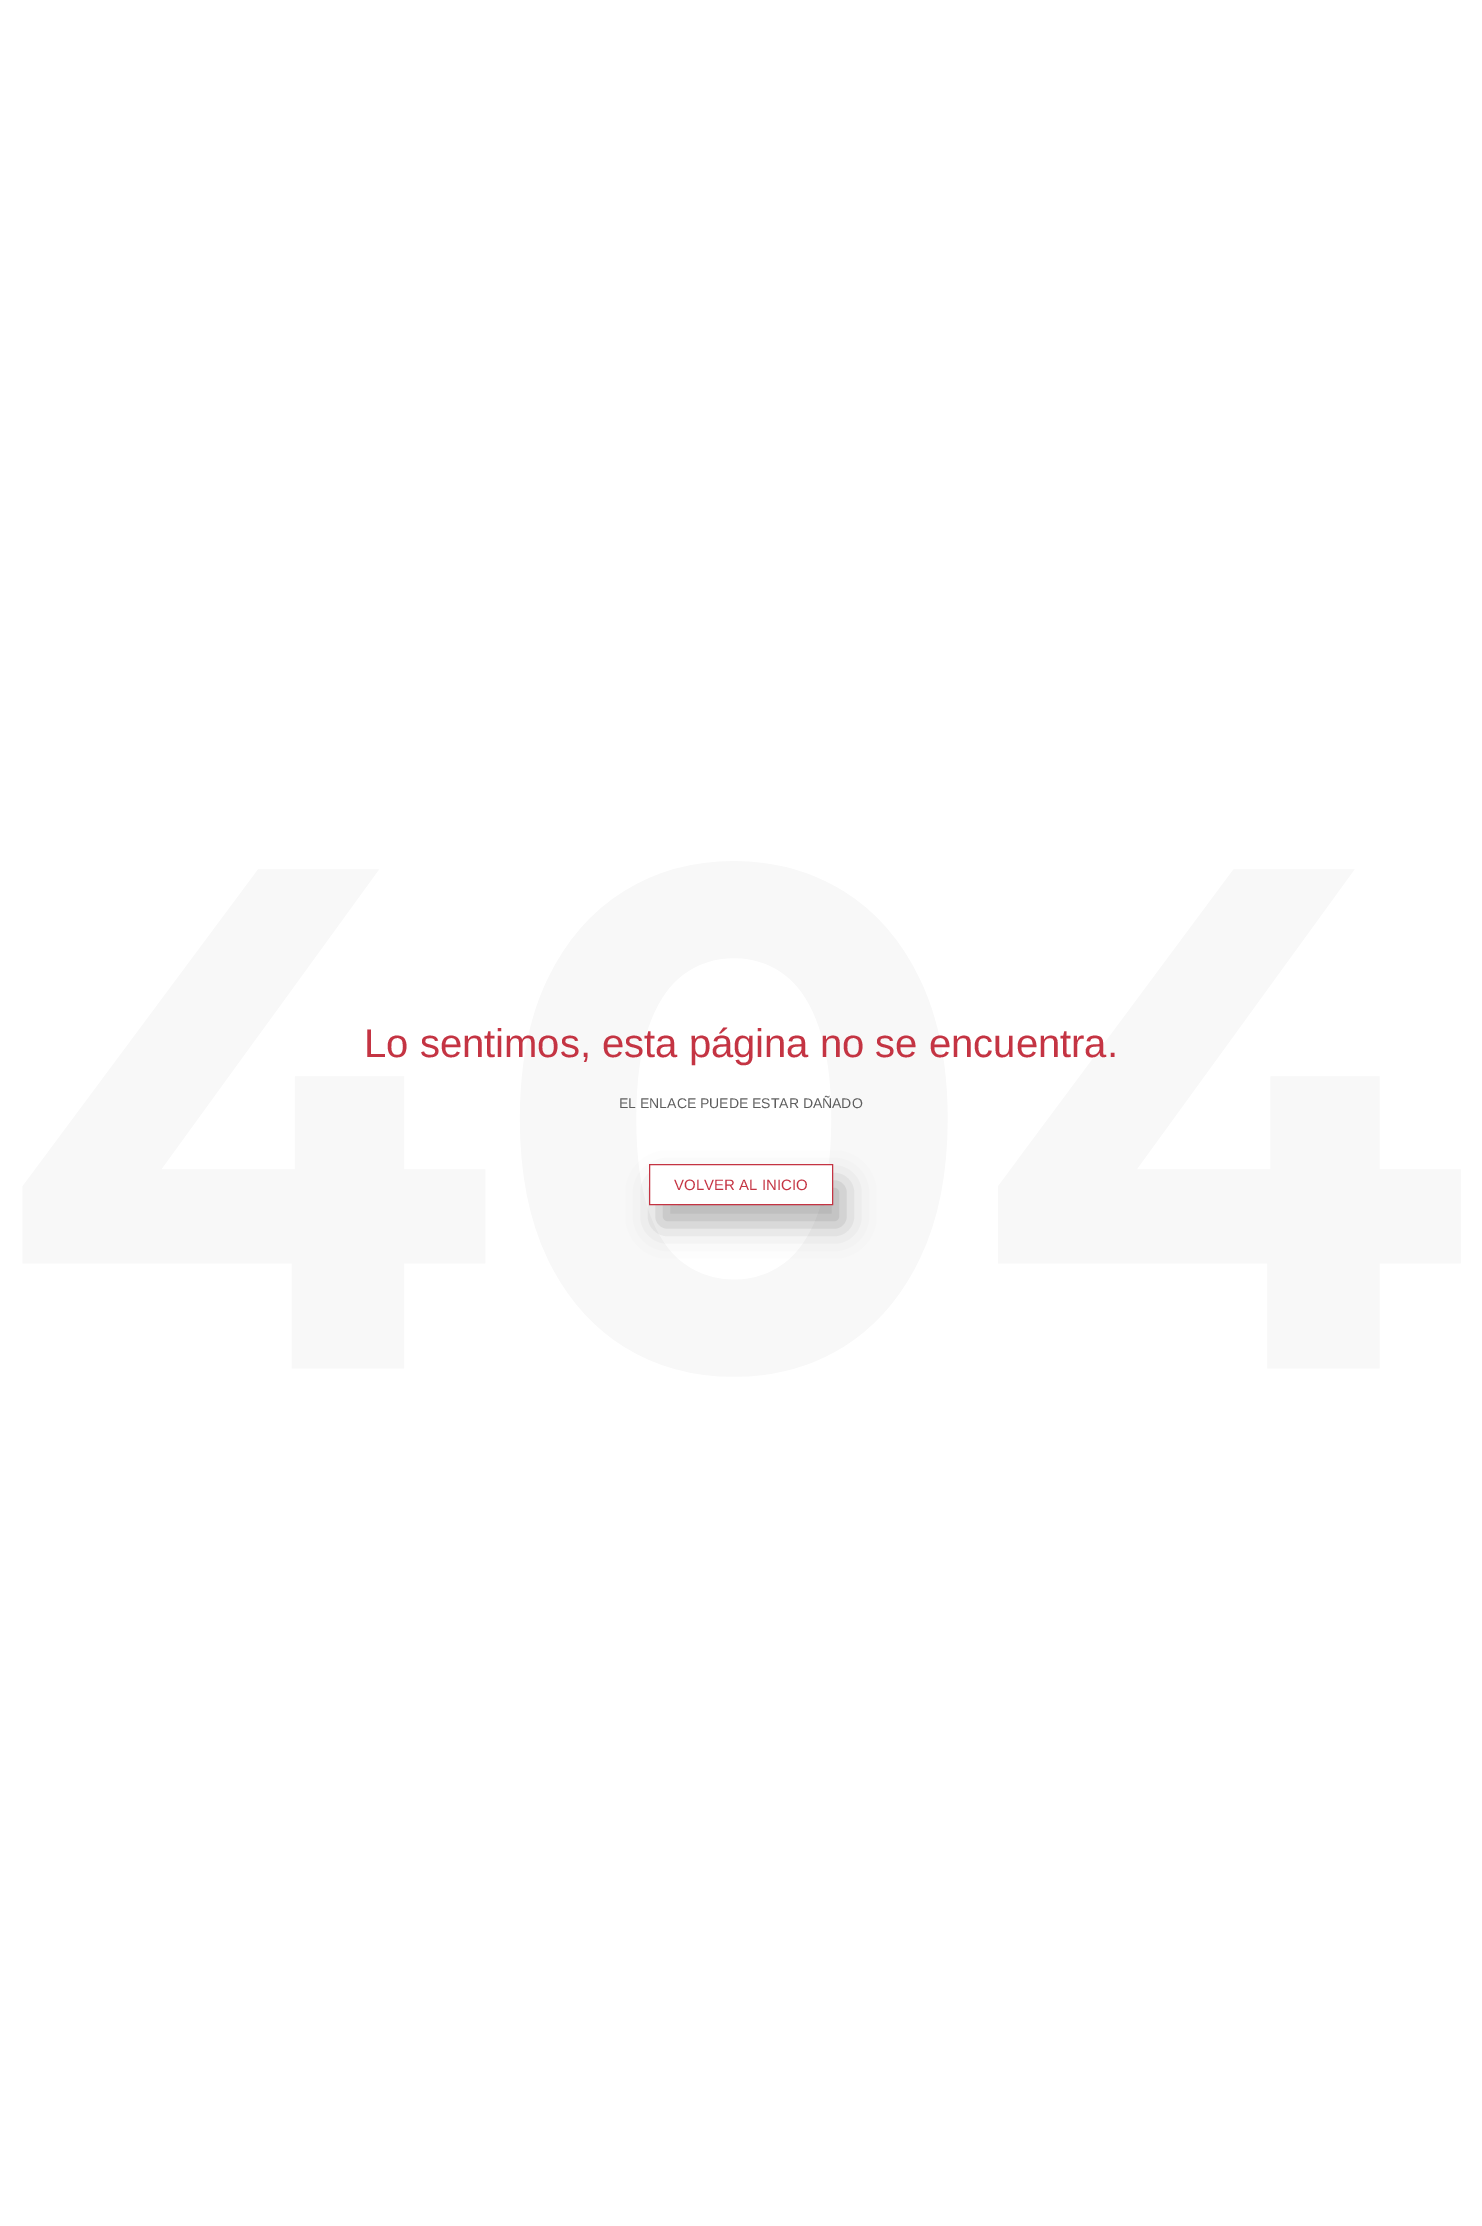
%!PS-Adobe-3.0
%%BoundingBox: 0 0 1482 2226
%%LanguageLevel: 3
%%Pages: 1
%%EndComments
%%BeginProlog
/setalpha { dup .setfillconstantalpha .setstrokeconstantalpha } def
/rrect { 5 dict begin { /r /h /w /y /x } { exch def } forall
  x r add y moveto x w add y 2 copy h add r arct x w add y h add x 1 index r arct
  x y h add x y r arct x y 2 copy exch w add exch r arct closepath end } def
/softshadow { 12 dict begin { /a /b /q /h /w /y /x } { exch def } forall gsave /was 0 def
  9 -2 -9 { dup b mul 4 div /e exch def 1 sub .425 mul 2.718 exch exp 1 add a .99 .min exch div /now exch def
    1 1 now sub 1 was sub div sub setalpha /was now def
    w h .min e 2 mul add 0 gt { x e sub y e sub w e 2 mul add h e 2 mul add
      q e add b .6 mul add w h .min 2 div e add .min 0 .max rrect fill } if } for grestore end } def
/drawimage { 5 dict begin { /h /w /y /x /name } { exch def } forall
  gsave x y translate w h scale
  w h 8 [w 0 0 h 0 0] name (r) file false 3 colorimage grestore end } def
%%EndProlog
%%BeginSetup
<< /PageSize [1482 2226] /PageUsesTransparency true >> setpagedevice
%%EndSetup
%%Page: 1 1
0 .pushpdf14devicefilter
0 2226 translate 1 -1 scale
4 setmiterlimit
1 setgray
0 0 1482 2226 rectfill
(images/1.raw) 22 861 1439 516 drawimage
0 setgray
659 1184 184 41 0 15 0.3 softshadow
1 setgray
newpath 649.5 1164.5 moveto 832.5 1164.5 lineto 832.5 1204.5 lineto 649.5 1204.5 lineto closepath gsave fill grestore
0.769 0.204 0.263 setrgbcolor
stroke
/LiberationSans-Regular [40 0 0 -40 0 0] selectfont
364 1057 moveto (Lo sentimos, esta página no se encuentra.) show
/LiberationSans-Regular [14 0 0 -14 0 0] selectfont
0.365 setgray
619 1108 moveto (EL ENLACE PUEDE ESTAR DAÑADO) show
/LiberationSans-Regular [15 0 0 -15 0 0] selectfont
0.769 0.204 0.263 setrgbcolor
674 1190 moveto (VOLVER AL INICIO) show
.poppdf14devicefilter showpage
%%EOF
